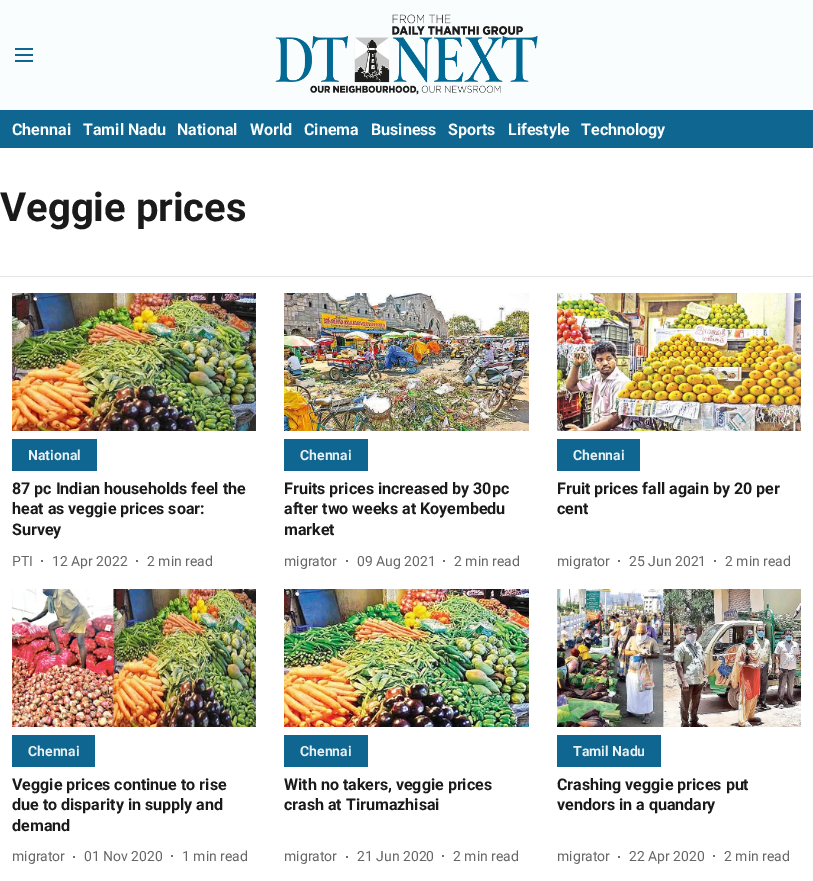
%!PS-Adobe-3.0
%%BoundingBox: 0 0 813 881
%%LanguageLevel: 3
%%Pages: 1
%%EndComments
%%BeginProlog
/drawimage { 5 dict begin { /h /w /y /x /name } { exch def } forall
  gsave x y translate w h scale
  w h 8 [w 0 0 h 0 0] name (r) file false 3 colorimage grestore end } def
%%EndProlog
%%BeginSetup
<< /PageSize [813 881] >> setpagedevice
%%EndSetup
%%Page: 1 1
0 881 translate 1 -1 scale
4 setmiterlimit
1 setgray
0 0 813 881 rectfill
0.98 0.992 0.996 setrgbcolor
0 0 813 110 rectfill
(images/1.raw) 15 48 18 14 drawimage
(images/2.raw) 275 14 263 81 drawimage
0.059 0.4 0.565 setrgbcolor
0 110 813 38 rectfill
0.902 setgray
0 276 813 1 rectfill
(images/3.raw) 12 293 244 138 drawimage
0.059 0.4 0.565 setrgbcolor
12 439 85 32 rectfill
0.4 setgray
newpath 42 561 1 0 360 arc closepath fill
newpath 137 561 1 0 360 arc closepath fill
(images/4.raw) 284 293 245 138 drawimage
0.059 0.4 0.565 setrgbcolor
284 439 84 32 rectfill
0.4 setgray
newpath 347 561 1 0 360 arc closepath fill
newpath 444 561 1 0 360 arc closepath fill
(images/5.raw) 557 293 244 138 drawimage
0.059 0.4 0.565 setrgbcolor
557 439 83 32 rectfill
0.4 setgray
newpath 619 561 1 0 360 arc closepath fill
newpath 715 561 1 0 360 arc closepath fill
(images/6.raw) 12 589 244 138 drawimage
0.059 0.4 0.565 setrgbcolor
12 735 83 32 rectfill
0.4 setgray
newpath 74 857 1 0 360 arc closepath fill
newpath 172 856 1 0 360 arc closepath fill
(images/7.raw) 284 589 245 138 drawimage
0.059 0.4 0.565 setrgbcolor
284 735 84 32 rectfill
0.4 setgray
newpath 347 857 1 0 360 arc closepath fill
newpath 443 856 1 0 360 arc closepath fill
(images/8.raw) 557 589 244 138 drawimage
0.059 0.4 0.565 setrgbcolor
557 735 104 32 rectfill
0.4 setgray
newpath 619 857 1 0 360 arc closepath fill
newpath 714 856 1 0 360 arc closepath fill
/Roboto-Bold [16 0 0 -16 0 0] selectfont
0.98 0.992 0.996 setrgbcolor
12 135 moveto (Chennai) show
83 135 moveto (Tamil Nadu) show
177 135 moveto (National) show
250 135 moveto (World) show
304 135 moveto (Cinema) show
371 135 moveto (Business) show
448 135 moveto (Sports) show
508 135 moveto (Lifestyle) show
581 135 moveto (Technology) show
/Roboto-Bold [40 0 0 -40 0 0] selectfont
0.102 setgray
0 221 moveto (Veggie prices) show
/Roboto-Bold [14 0 0 -14 0 0] selectfont
0.906 0.941 0.957 setrgbcolor
28 460 moveto (National) show
/Roboto-Bold [16 0 0 -16 0 0] selectfont
0.102 setgray
12 494 moveto (87 pc Indian households feel the) show
12 514 moveto (heat as veggie prices soar:) show
12 535 moveto (Survey) show
/Roboto-Regular [14 0 0 -14 0 0] selectfont
0.4 setgray
12 566 moveto (PTI) show
52 566 moveto (12 Apr 2022) show
147 566 moveto (2 min read) show
/Roboto-Bold [14 0 0 -14 0 0] selectfont
0.906 0.941 0.957 setrgbcolor
300 460 moveto (Chennai) show
/Roboto-Bold [16 0 0 -16 0 0] selectfont
0.102 setgray
284 494 moveto (Fruits prices increased by 30pc) show
284 514 moveto (after two weeks at Koyembedu) show
284 535 moveto (market) show
/Roboto-Regular [14 0 0 -14 0 0] selectfont
0.4 setgray
284 566 moveto (migrator) show
357 566 moveto (09 Aug 2021) show
454 566 moveto (2 min read) show
/Roboto-Bold [14 0 0 -14 0 0] selectfont
0.906 0.941 0.957 setrgbcolor
573 460 moveto (Chennai) show
/Roboto-Bold [16 0 0 -16 0 0] selectfont
0.102 setgray
557 494 moveto (Fruit prices fall again by 20 per) show
557 514 moveto (cent) show
/Roboto-Regular [14 0 0 -14 0 0] selectfont
0.4 setgray
557 566 moveto (migrator) show
629 566 moveto (25 Jun 2021) show
725 566 moveto (2 min read) show
/Roboto-Bold [14 0 0 -14 0 0] selectfont
0.906 0.941 0.957 setrgbcolor
28 756 moveto (Chennai) show
/Roboto-Bold [16 0 0 -16 0 0] selectfont
0.102 setgray
12 790 moveto (Veggie prices continue to rise) show
12 810 moveto (due to disparity in supply and) show
12 831 moveto (demand) show
/Roboto-Regular [14 0 0 -14 0 0] selectfont
0.4 setgray
12 861 moveto (migrator) show
84 861 moveto (01 Nov 2020) show
182 861 moveto (1 min read) show
/Roboto-Bold [14 0 0 -14 0 0] selectfont
0.906 0.941 0.957 setrgbcolor
300 756 moveto (Chennai) show
/Roboto-Bold [16 0 0 -16 0 0] selectfont
0.102 setgray
284 790 moveto (With no takers, veggie prices) show
284 810 moveto (crash at Tirumazhisai) show
/Roboto-Regular [14 0 0 -14 0 0] selectfont
0.4 setgray
284 861 moveto (migrator) show
357 861 moveto (21 Jun 2020) show
453 861 moveto (2 min read) show
/Roboto-Bold [14 0 0 -14 0 0] selectfont
0.906 0.941 0.957 setrgbcolor
573 756 moveto (Tamil Nadu) show
/Roboto-Bold [16 0 0 -16 0 0] selectfont
0.102 setgray
557 790 moveto (Crashing veggie prices put) show
557 810 moveto (vendors in a quandary) show
/Roboto-Regular [14 0 0 -14 0 0] selectfont
0.4 setgray
557 861 moveto (migrator) show
629 861 moveto (22 Apr 2020) show
724 861 moveto (2 min read) show
showpage
%%EOF
